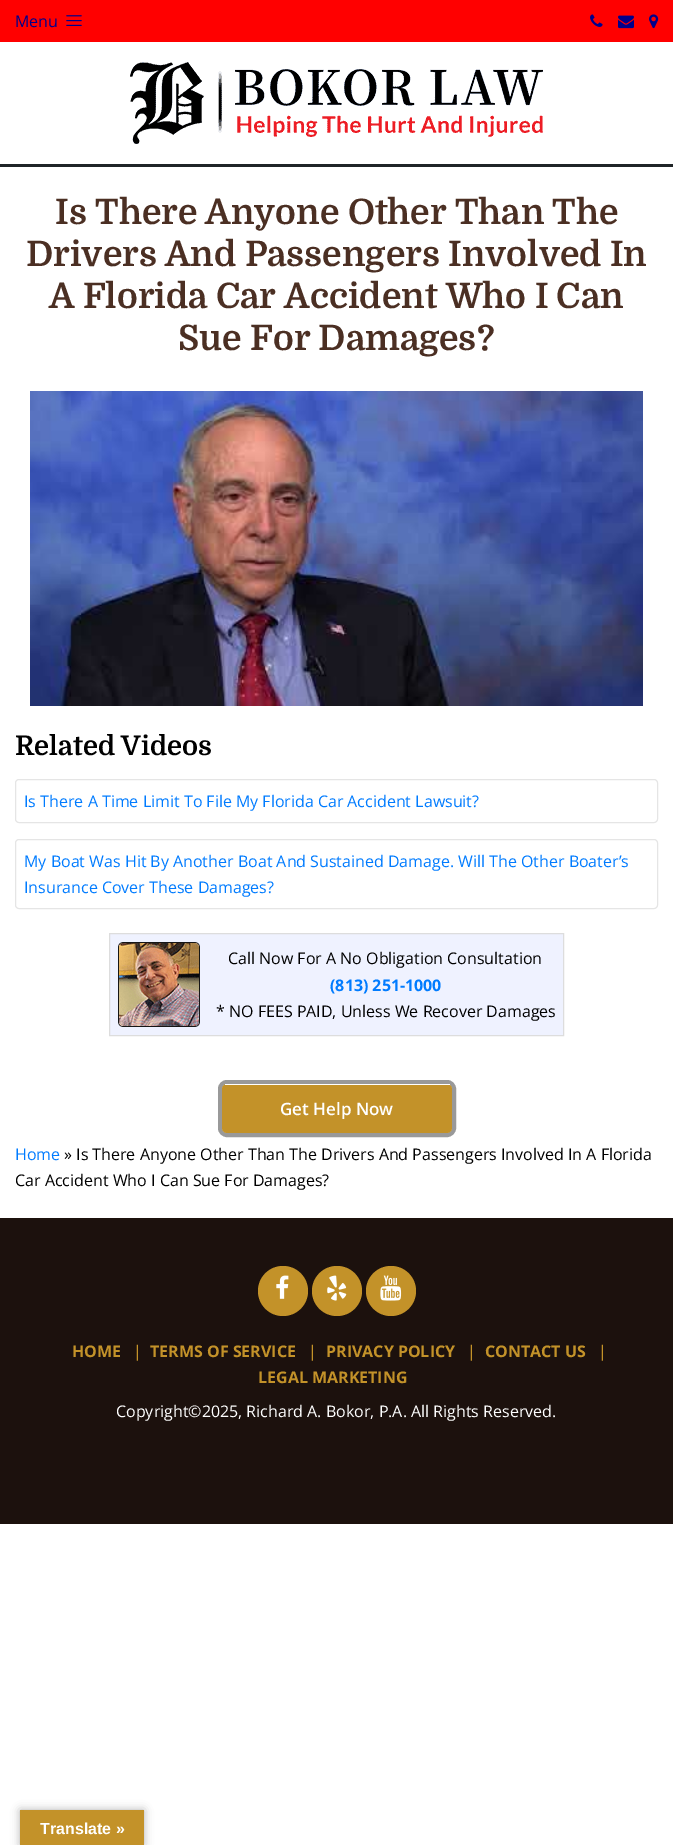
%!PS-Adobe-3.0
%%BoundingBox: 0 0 673 1845
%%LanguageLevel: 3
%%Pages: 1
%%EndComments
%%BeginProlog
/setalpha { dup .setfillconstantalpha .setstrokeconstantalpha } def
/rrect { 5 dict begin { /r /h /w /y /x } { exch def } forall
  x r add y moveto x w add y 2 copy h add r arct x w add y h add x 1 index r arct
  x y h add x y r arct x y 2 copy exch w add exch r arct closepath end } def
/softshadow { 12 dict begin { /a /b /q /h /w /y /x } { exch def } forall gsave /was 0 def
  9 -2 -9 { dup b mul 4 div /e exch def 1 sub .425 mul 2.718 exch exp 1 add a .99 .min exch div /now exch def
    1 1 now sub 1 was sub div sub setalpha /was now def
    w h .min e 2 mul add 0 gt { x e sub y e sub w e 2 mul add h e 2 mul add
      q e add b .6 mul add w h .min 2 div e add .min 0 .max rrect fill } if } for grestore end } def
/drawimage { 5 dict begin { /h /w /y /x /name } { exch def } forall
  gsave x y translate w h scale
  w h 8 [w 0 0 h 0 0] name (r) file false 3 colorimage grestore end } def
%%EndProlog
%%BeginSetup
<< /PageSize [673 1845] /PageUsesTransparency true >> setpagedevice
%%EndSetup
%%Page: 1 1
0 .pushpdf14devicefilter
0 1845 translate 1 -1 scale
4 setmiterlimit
1 setgray
0 0 673 1845 rectfill
1 0 0 setrgbcolor
0 0 673 42 rectfill
(images/1.raw) 66 15 16 11 drawimage
(images/2.raw) 590 14 13 13 drawimage
(images/3.raw) 618 15 16 14 drawimage
(images/4.raw) 649 14 10 15 drawimage
0.122 0.141 0.153 setrgbcolor
0 164 673 3 rectfill
(images/5.raw) 130 62 413 82 drawimage
(images/6.raw) 30 391 613 315 drawimage
0.898 setgray
15.5 779.5 642 43 3.5 rrect stroke
15.5 839.5 642 69 3.5 rrect stroke
0.937 0.949 1 setrgbcolor
newpath 109.5 933.5 moveto 563.5 933.5 lineto 563.5 1035.5 lineto 109.5 1035.5 lineto closepath gsave fill grestore
0.867 setgray
stroke
(images/7.raw) 118 942 82 85 drawimage
0.6 setgray
4 setlinewidth
220 1082 234 53 7 rrect stroke
0.765 0.573 0.161 setrgbcolor
222 1084 230 49 5 rrect fill
1 setgray
225 1084 225 1 rectfill
0.11 0.067 0.051 setrgbcolor
0 1218 673 306 rectfill
0.765 0.573 0.161 setrgbcolor
newpath 283 1291 25 0 360 arc closepath fill
(images/8.raw) 276 1275 13 24 drawimage
newpath 337 1291 25 0 360 arc closepath fill
(images/9.raw) 327 1275 20 26 drawimage
newpath 391 1291 25 0 360 arc closepath fill
(images/10.raw) 380 1275 22 26 drawimage
0 setgray
20 1810 124 35 0 4.5 0.3 softshadow
0.765 0.573 0.161 setrgbcolor
20 1810 124 35 rectfill
/OpenSans-Regular [16 0 0 -16 0 0] selectfont
0 0 0.545 setrgbcolor
15 27 moveto (Menu) show
/Domine-Bold [35 0 0 -35 0 0] selectfont
0.294 0.184 0.137 setrgbcolor
55 224 moveto (Is There Anyone Other Than The) show
26 266 moveto (Drivers And Passengers Involved In) show
49 308 moveto (A Florida Car Accident Who I Can) show
178 350 moveto (Sue For Damages?) show
/Domine-Bold [27 0 0 -27 0 0] selectfont
0 setgray
15 755 moveto (Related Videos) show
/OpenSans-Regular [16 0 0 -16 0 0] selectfont
0 0.482 1 setrgbcolor
24 807 moveto (Is There A Time Limit To File My Florida Car Accident Lawsuit?) show
24 867 moveto (My Boat Was Hit By Another Boat And Sustained Damage. Will The Other Boater’s) show
24 893 moveto (Insurance Cover These Damages?) show
0 setgray
228 964 moveto (Call Now For A No Obligation Consultation) show
/OpenSans-Bold [16 0 0 -16 0 0] selectfont
0 0.482 1 setrgbcolor
330 991 moveto (\(813\) 251-1000) show
/OpenSans-Regular [16 0 0 -16 0 0] selectfont
0 setgray
216 1017 moveto (* NO FEES PAID, Unless We Recover Damages) show
/OpenSans-SemiBold [17 0 0 -17 0 0] selectfont
1 setgray
280 1115 moveto (Get Help Now) show
/OpenSans-Regular [16 0 0 -16 0 0] selectfont
0 0.482 1 setrgbcolor
15 1160 moveto (Home) show
0 setgray
64 1160 moveto (» Is There Anyone Other Than The Drivers And Passengers Involved In A Florida) show
15 1186 moveto (Car Accident Who I Can Sue For Damages?) show
/OpenSans-Bold [16 0 0 -16 0 0] selectfont
0.765 0.573 0.161 setrgbcolor
72 1357 moveto (HOME) show
/OpenSans-Regular [16 0 0 -16 0 0] selectfont
133 1357 moveto (|) show
/OpenSans-Bold [16 0 0 -16 0 0] selectfont
150 1357 moveto (TERMS OF SERVICE) show
/OpenSans-Regular [16 0 0 -16 0 0] selectfont
308 1357 moveto (|) show
/OpenSans-Bold [16 0 0 -16 0 0] selectfont
326 1357 moveto (PRIVACY POLICY) show
/OpenSans-Regular [16 0 0 -16 0 0] selectfont
467 1357 moveto (|) show
/OpenSans-Bold [16 0 0 -16 0 0] selectfont
485 1357 moveto (CONTACT US) show
/OpenSans-Regular [16 0 0 -16 0 0] selectfont
598 1357 moveto (|) show
/OpenSans-Bold [16 0 0 -16 0 0] selectfont
258 1383 moveto (LEGAL MARKETING) show
/OpenSans-Regular [16 0 0 -16 0 0] selectfont
1 setgray
116 1417 moveto (Copyright©2025, Richard A. Bokor, P.A. All Rights Reserved.) show
/LiberationSans-Bold [16 0 0 -16 0 0] selectfont
40 1834 moveto (Translate ») show
.poppdf14devicefilter showpage
%%EOF
